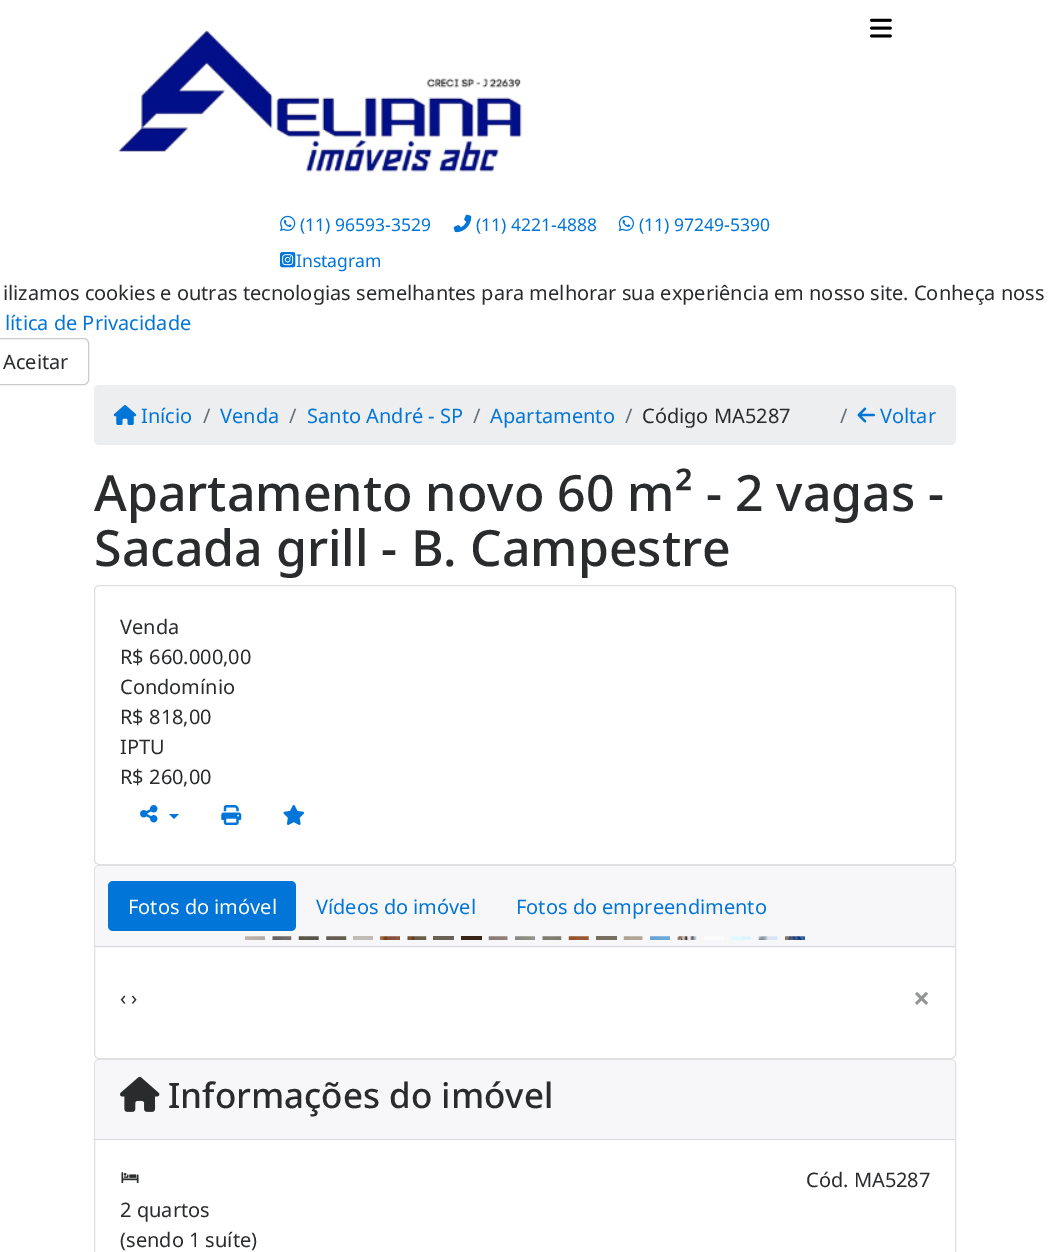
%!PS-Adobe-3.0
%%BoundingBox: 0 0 1049 1252
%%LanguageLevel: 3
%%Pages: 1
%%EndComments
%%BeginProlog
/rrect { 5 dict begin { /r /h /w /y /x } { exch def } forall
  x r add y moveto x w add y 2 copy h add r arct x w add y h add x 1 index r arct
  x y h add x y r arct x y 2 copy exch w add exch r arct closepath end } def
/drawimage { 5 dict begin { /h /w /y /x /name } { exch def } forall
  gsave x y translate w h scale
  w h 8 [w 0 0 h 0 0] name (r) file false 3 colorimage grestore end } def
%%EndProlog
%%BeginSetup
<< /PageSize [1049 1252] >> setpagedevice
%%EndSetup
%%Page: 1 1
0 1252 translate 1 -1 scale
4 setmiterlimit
1 setgray
0 0 1049 1252 rectfill
(images/1.raw) 870 18 22 20 drawimage
(images/2.raw) 118 30 404 142 drawimage
(images/3.raw) 280 215 16 16 drawimage
(images/4.raw) 453 214 19 19 drawimage
(images/5.raw) 618 215 17 16 drawimage
(images/6.raw) 280 252 16 16 drawimage
0.8 setgray
-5.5 338.5 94 46 4.5 rrect stroke
0.925 0.933 0.937 setrgbcolor
94 385 862 60 5 rrect fill
(images/7.raw) 113 405 24 20 drawimage
(images/8.raw) 857 407 18 16 drawimage
0.875 setgray
94.5 585.5 861 279 4.5 rrect stroke
(images/9.raw) 140 805 18 18 drawimage
0.008 0.459 0.847 setrgbcolor
newpath 169 814 moveto 179 814 lineto 174 819 lineto closepath fill
(images/10.raw) 221 805 21 20 drawimage
(images/11.raw) 283 805 21 20 drawimage
0.875 setgray
94.5 865.5 861 193 4.5 rrect stroke
0.969 0.969 0.976 setrgbcolor
newpath 99 866 moveto 951 866 lineto 953 866 955 868 955 870 curveto 955 948 lineto 95 948 lineto 95 870 lineto 95 868 97 866 99 866 curveto closepath fill
0.847 0.847 0.855 setrgbcolor
95 946 860 1 rectfill
0.008 0.459 0.847 setrgbcolor
108 881 188 50 5 rrect fill
(images/12.raw) 245 936 20 4 drawimage
(images/13.raw) 272 936 20 4 drawimage
0.984 0.984 0.988 setrgbcolor
299 936 20 4 rectfill
(images/14.raw) 298 936 21 4 drawimage
326 936 20 4 rectfill
(images/15.raw) 326 936 21 4 drawimage
0.757 0.737 0.714 setrgbcolor
353 936 20 4 rectfill
(images/16.raw) 380 936 20 4 drawimage
(images/17.raw) 407 936 20 4 drawimage
0.412 0.38 0.337 setrgbcolor
433 936 21 4 rectfill
0.22 0.145 0.09 setrgbcolor
461 936 21 4 rectfill
0.984 0.984 0.988 setrgbcolor
489 936 19 4 rectfill
(images/18.raw) 488 936 20 4 drawimage
(images/19.raw) 515 936 20 4 drawimage
(images/20.raw) 542 936 20 4 drawimage
569 936 20 4 rectfill
(images/21.raw) 568 936 21 4 drawimage
0.463 0.435 0.365 setrgbcolor
596 936 21 4 rectfill
0.984 0.984 0.988 setrgbcolor
624 936 19 4 rectfill
(images/22.raw) 623 936 20 4 drawimage
(images/23.raw) 650 936 20 4 drawimage
(images/24.raw) 677 936 20 4 drawimage
704 936 20 4 rectfill
731 936 20 4 rectfill
(images/25.raw) 731 936 21 4 drawimage
759 936 19 4 rectfill
(images/26.raw) 758 936 20 4 drawimage
(images/27.raw) 785 936 20 4 drawimage
0.875 setgray
94.5 1059.5 861 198 4.5 rrect stroke
0.969 0.969 0.976 setrgbcolor
newpath 99 1060 moveto 951 1060 lineto 953 1060 955 1062 955 1064 curveto 955 1140 lineto 95 1140 lineto 95 1064 lineto 95 1062 97 1060 99 1060 curveto closepath fill
0.847 0.847 0.855 setrgbcolor
95 1139 860 1 rectfill
(images/28.raw) 120 1076 40 36 drawimage
(images/29.raw) 121 1172 18 11 drawimage
/NotoSans-Regular [17.5 0 0 -17.5 0 0] selectfont
0.008 0.459 0.847 setrgbcolor
300 231 moveto (\(11\) 96593-3529) show
476 231 moveto (\(11\) 4221-4888) show
639 231 moveto (\(11\) 97249-5390) show
296 267 moveto (Instagram) show
/NotoSans-Regular [20 0 0 -20 0 0] selectfont
0.161 0.169 0.173 setrgbcolor
3 300 moveto (ilizamos cookies e outras tecnologias semelhantes para melhorar sua experiência em nosso site. Conheça noss) show
0.008 0.459 0.847 setrgbcolor
5 330 moveto (lítica de Privacidade) show
0.161 0.169 0.173 setrgbcolor
3 369 moveto (Aceitar) show
0.008 0.459 0.847 setrgbcolor
141 423 moveto (Início) show
0.388 0.424 0.447 setrgbcolor
203 423 moveto (/) show
0.008 0.459 0.847 setrgbcolor
220 423 moveto (Venda) show
0.388 0.424 0.447 setrgbcolor
289 423 moveto (/) show
0.008 0.459 0.847 setrgbcolor
307 423 moveto (Santo André - SP) show
0.388 0.424 0.447 setrgbcolor
473 423 moveto (/) show
0.008 0.459 0.847 setrgbcolor
490 423 moveto (Apartamento) show
0.388 0.424 0.447 setrgbcolor
625 423 moveto (/) show
0.161 0.169 0.173 setrgbcolor
642 423 moveto (Código MA5287) show
0.388 0.424 0.447 setrgbcolor
840 423 moveto (/) show
0.008 0.459 0.847 setrgbcolor
880 423 moveto (Voltar) show
/NotoSans-Medium [50 0 0 -50 0 0] selectfont
0.161 0.169 0.173 setrgbcolor
94 511 moveto (Apartamento novo 60 m² - 2 vagas -) show
94 566 moveto (Sacada grill - B. Campestre) show
/NotoSans-Regular [20 0 0 -20 0 0] selectfont
120 634 moveto (Venda) show
120 664 moveto (R$ 660.000,00) show
120 694 moveto (Condomínio) show
120 724 moveto (R$ 818,00) show
120 754 moveto (IPTU) show
120 784 moveto (R$ 260,00) show
1 setgray
128 914 moveto (Fotos do imóvel) show
0.008 0.459 0.847 setrgbcolor
316 914 moveto (Vídeos do imóvel) show
516 914 moveto (Fotos do empreendimento) show
0.161 0.169 0.173 setrgbcolor
120 1005 moveto (‹ ›) show
/NotoSans-Bold [30 0 0 -30 0 0] selectfont
0.58 0.584 0.588 setrgbcolor
913 1009 moveto (×) show
/NotoSans-Medium [35 0 0 -35 0 0] selectfont
0.161 0.169 0.173 setrgbcolor
168 1108 moveto (Informações do imóvel) show
/NotoSans-Regular [20 0 0 -20 0 0] selectfont
806 1187 moveto (Cód. MA5287) show
120 1217 moveto (2 quartos) show
120 1247 moveto (\(sendo 1 suíte\)) show
showpage
%%EOF
